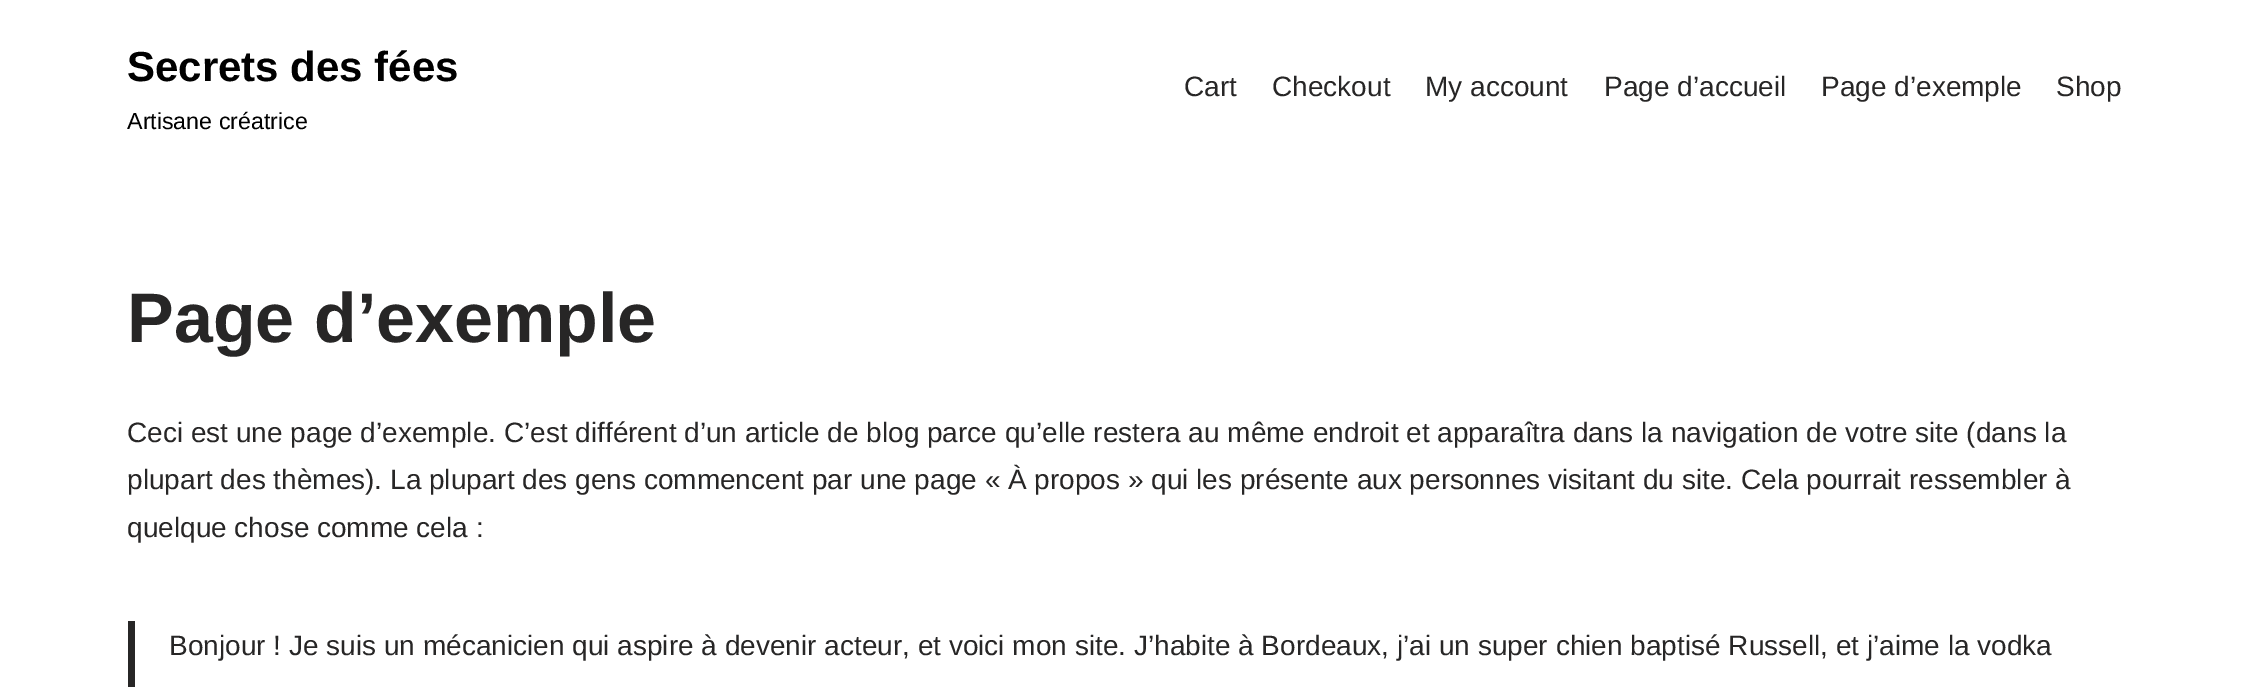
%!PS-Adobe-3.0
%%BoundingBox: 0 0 2248 687
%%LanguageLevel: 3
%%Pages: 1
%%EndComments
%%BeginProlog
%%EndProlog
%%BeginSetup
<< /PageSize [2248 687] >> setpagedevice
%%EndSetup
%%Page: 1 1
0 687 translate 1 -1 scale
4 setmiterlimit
1 setgray
0 0 2248 687 rectfill
0.153 0.149 0.149 setrgbcolor
128 621 7 66 rectfill
/LiberationSans-Bold [42 0 0 -42 0 0] selectfont
0 setgray
127 81 moveto (Secrets des fées) show
/LiberationSans-Regular [23.25 0 0 -23.25 0 0] selectfont
127 129 moveto (Artisane créatrice) show
/LiberationSans-Regular [28 0 0 -28 0 0] selectfont
0.153 0.149 0.149 setrgbcolor
1184 96 moveto (Cart) show
1272 96 moveto (Checkout) show
1425 96 moveto (My account) show
1604 96 moveto (Page d’accueil) show
1821 96 moveto (Page d’exemple) show
2056 96 moveto (Shop) show
/LiberationSans-Bold [70 0 0 -70 0 0] selectfont
127 342 moveto (Page d’exemple) show
/LiberationSans-Regular [28 0 0 -28 0 0] selectfont
127 442 moveto (Ceci est une page d’exemple. C’est différent d’un article de blog parce qu’elle restera au même endroit et apparaîtra dans la navigation de votre site \(dans la) show
127 489 moveto (plupart des thèmes\). La plupart des gens commencent par une page « À propos » qui les présente aux personnes visitant du site. Cela pourrait ressembler à) show
127 537 moveto (quelque chose comme cela :) show
169 655 moveto (Bonjour ! Je suis un mécanicien qui aspire à devenir acteur, et voici mon site. J’habite à Bordeaux, j’ai un super chien baptisé Russell, et j’aime la vodka) show
showpage
%%EOF
